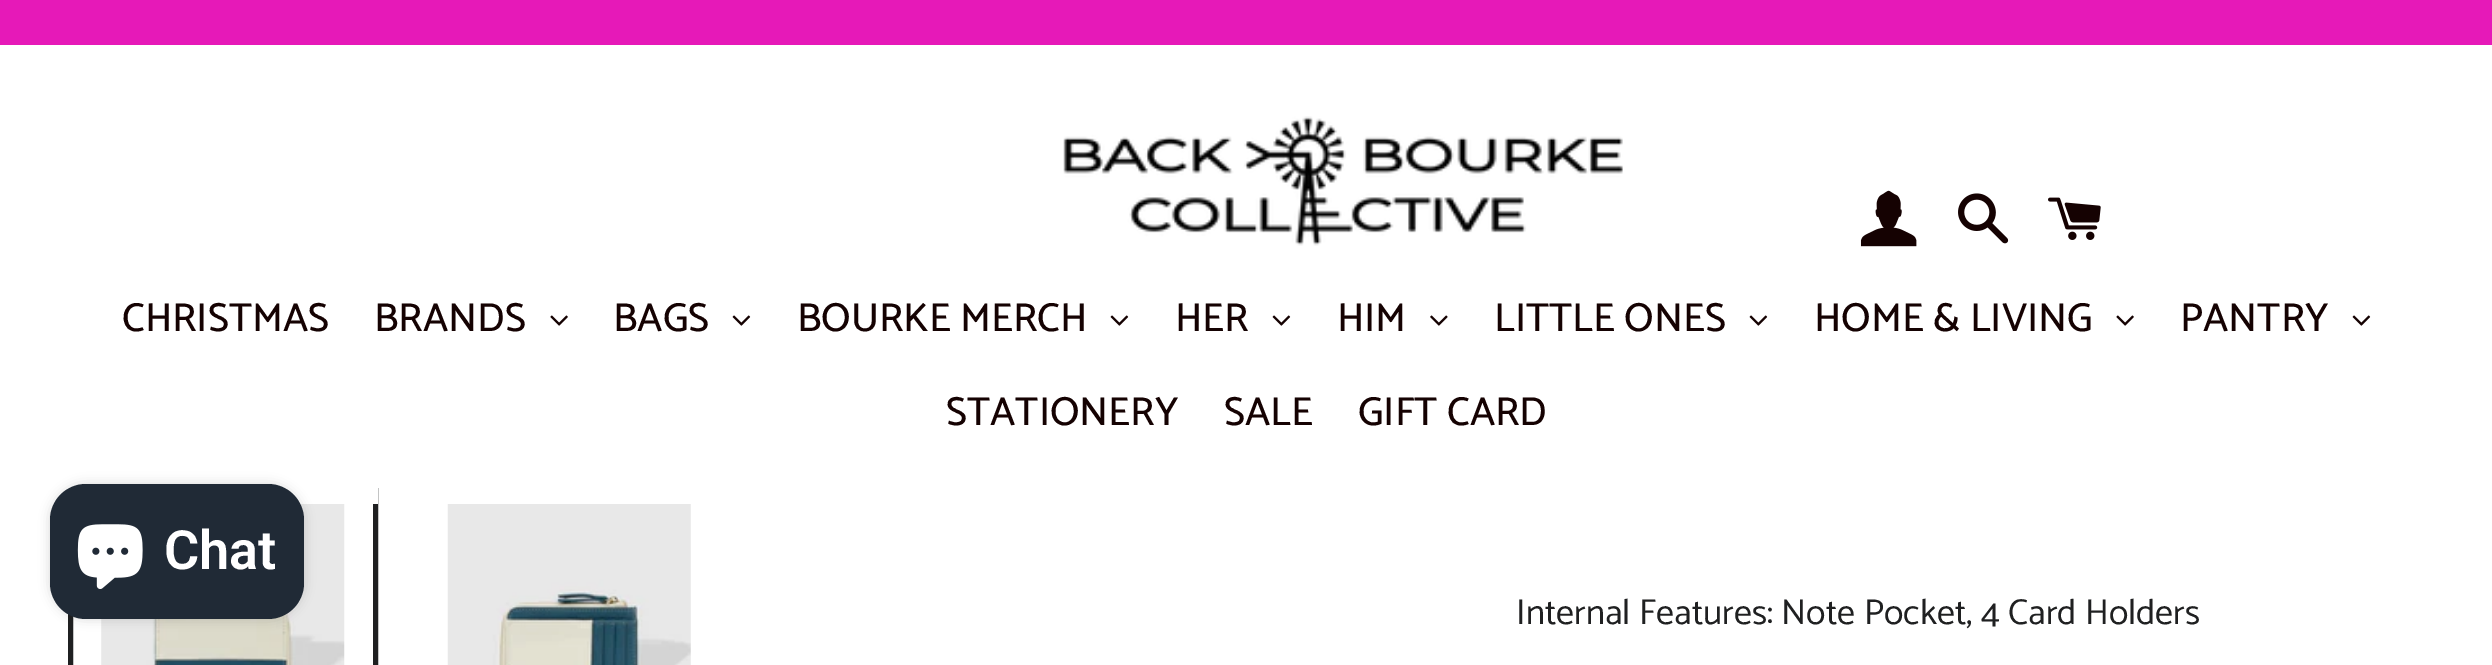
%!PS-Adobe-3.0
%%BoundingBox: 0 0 2492 665
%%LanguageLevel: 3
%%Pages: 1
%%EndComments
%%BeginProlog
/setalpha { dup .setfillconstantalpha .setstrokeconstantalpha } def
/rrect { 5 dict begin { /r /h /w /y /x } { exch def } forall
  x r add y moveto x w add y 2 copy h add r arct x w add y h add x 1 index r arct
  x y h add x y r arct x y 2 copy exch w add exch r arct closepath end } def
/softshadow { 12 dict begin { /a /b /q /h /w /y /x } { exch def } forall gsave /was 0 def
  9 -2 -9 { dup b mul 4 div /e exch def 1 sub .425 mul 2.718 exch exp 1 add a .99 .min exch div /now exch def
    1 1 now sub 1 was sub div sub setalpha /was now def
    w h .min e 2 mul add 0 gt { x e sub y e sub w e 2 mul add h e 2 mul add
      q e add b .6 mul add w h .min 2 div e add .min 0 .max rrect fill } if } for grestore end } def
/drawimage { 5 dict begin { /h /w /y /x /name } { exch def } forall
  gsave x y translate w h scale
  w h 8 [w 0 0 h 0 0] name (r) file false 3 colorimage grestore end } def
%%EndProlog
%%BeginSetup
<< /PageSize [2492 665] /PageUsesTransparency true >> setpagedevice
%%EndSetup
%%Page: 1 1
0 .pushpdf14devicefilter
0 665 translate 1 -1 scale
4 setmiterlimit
1 setgray
0 0 2492 665 rectfill
0.902 0.098 0.722 setrgbcolor
0 0 2492 45 rectfill
0.122 0.125 0.129 setrgbcolor
5 setlinewidth
70.5 490.5 305 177 rectstroke
1 setgray
68 488 310 16 rectfill
(images/1.raw) 1063 116 560 130 drawimage
(images/2.raw) 1860 190 57 57 drawimage
(images/3.raw) 1958 193 51 51 drawimage
(images/4.raw) 2048 197 53 43 drawimage
(images/5.raw) 550 315 18 11 drawimage
(images/6.raw) 732 315 19 11 drawimage
(images/6.raw) 1110 315 19 11 drawimage
(images/6.raw) 1272 315 19 11 drawimage
(images/7.raw) 1430 315 18 11 drawimage
(images/6.raw) 1749 315 19 11 drawimage
(images/5.raw) 2116 315 18 11 drawimage
(images/6.raw) 2352 315 19 11 drawimage
(images/9.raw) 101 504 244 161 drawimage
0 setgray
50 484 254 135 36 5.5 0.15 softshadow
0.125 0.165 0.212 setrgbcolor
50 484 254 135 36 rrect fill
(images/8.raw) 77 524 66 65 drawimage
(images/10.raw) 447 504 244 161 drawimage
/Catamaran-Medium [40.5 0 0 -40.5 0 0] selectfont
0.082 0.008 0.008 setrgbcolor
122 331 moveto (CHRISTMAS) show
374 331 moveto (BRANDS) show
613 331 moveto (BAGS) show
797 331 moveto (BOURKE MERCH) show
1175 331 moveto (HER) show
1337 331 moveto (HIM) show
1494 331 moveto (LITTLE ONES) show
1814 331 moveto (HOME & LIVING) show
2180 331 moveto (PANTRY) show
946 425 moveto (STATIONERY) show
1224 425 moveto (SALE) show
1358 425 moveto (GIFT CARD) show
/Roboto-SemiBold [54 0 0 -54 0 0] selectfont
1 setgray
164 569 moveto (Chat) show
/Catamaran-Regular [36 0 0 -36 0 0] selectfont
0.122 0.125 0.129 setrgbcolor
1516 624 moveto (Internal Features: Note Pocket, 4 Card Holders) show
.poppdf14devicefilter showpage
%%EOF
